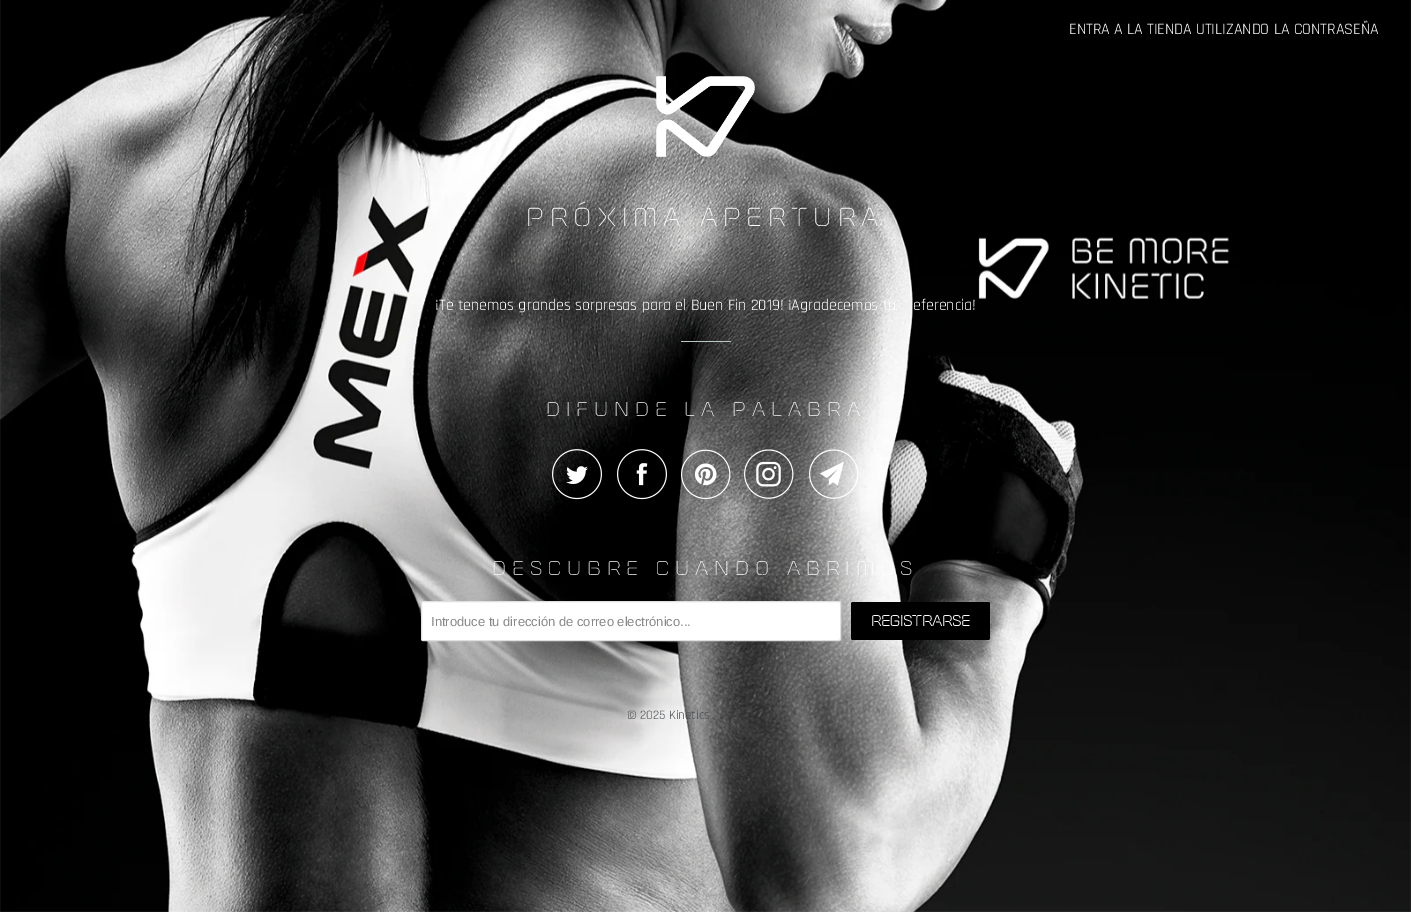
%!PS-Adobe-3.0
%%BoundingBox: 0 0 1411 912
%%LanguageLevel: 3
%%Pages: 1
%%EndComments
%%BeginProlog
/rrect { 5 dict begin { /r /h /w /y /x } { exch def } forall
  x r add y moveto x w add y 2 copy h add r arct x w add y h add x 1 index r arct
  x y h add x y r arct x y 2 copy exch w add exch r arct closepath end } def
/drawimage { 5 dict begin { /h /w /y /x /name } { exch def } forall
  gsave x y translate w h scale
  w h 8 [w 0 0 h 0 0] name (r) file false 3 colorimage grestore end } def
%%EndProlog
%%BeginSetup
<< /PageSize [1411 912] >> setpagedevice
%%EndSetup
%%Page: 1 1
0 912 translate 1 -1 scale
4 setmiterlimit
1 setgray
0 0 1411 912 rectfill
(images/1.raw) 0 0 1411 912 drawimage
(images/2.raw) 656 76 99 81 drawimage
0.722 0.776 0.776 setrgbcolor
681 341 50 1 rectfill
(images/3.raw) 552 449 50 51 drawimage
(images/4.raw) 617 449 50 51 drawimage
(images/5.raw) 681 449 50 51 drawimage
(images/6.raw) 744 449 50 50 drawimage
(images/7.raw) 809 449 50 50 drawimage
1 setgray
421.5 601.5 419 39 1.5 rrect gsave fill grestore
0.875 setgray
stroke
0 setgray
851 602 139 38 2 rrect fill
/Rajdhani-Regular [16 0 0 -16 0 0] selectfont
1 setgray
1069 34 moveto (ENTRA A LA TIENDA UTILIZANDO LA CONTRASEÑA) show
/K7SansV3-Light [26 0 0 -26 0 0] selectfont
526 226 moveto 6 0 (PRÓXIMA APERTURA) ashow
/Rajdhani-Regular [16 0 0 -16 0 0] selectfont
435 310 moveto (¡Te tenemos grandes sorpresas para el Buen Fin 2019! ¡Agradecemos tu) show
913 310 moveto (eferencia!) show
/K7SansV3-Light [20 0 0 -20 0 0] selectfont
546 416 moveto 6 0 (DIFUNDE LA PALABRA) ashow
492 575 moveto 6 0 (DESCUBRE CUANDO ABRIMOS) ashow
/LiberationSans-Regular [13 0 0 -13 0 0] selectfont
0.533 setgray
431 626 moveto (Introduce tu dirección de correo electrónico...) show
/K7SansV3-Bold [15 0 0 -15 0 0] selectfont
1 setgray
871 626 moveto (REGISTRARSE) show
/Rajdhani-Regular [13 0 0 -13 0 0] selectfont
0.286 0.298 0.314 setrgbcolor
627 719 moveto (© 2025 Kinetics) show
showpage
%%EOF
